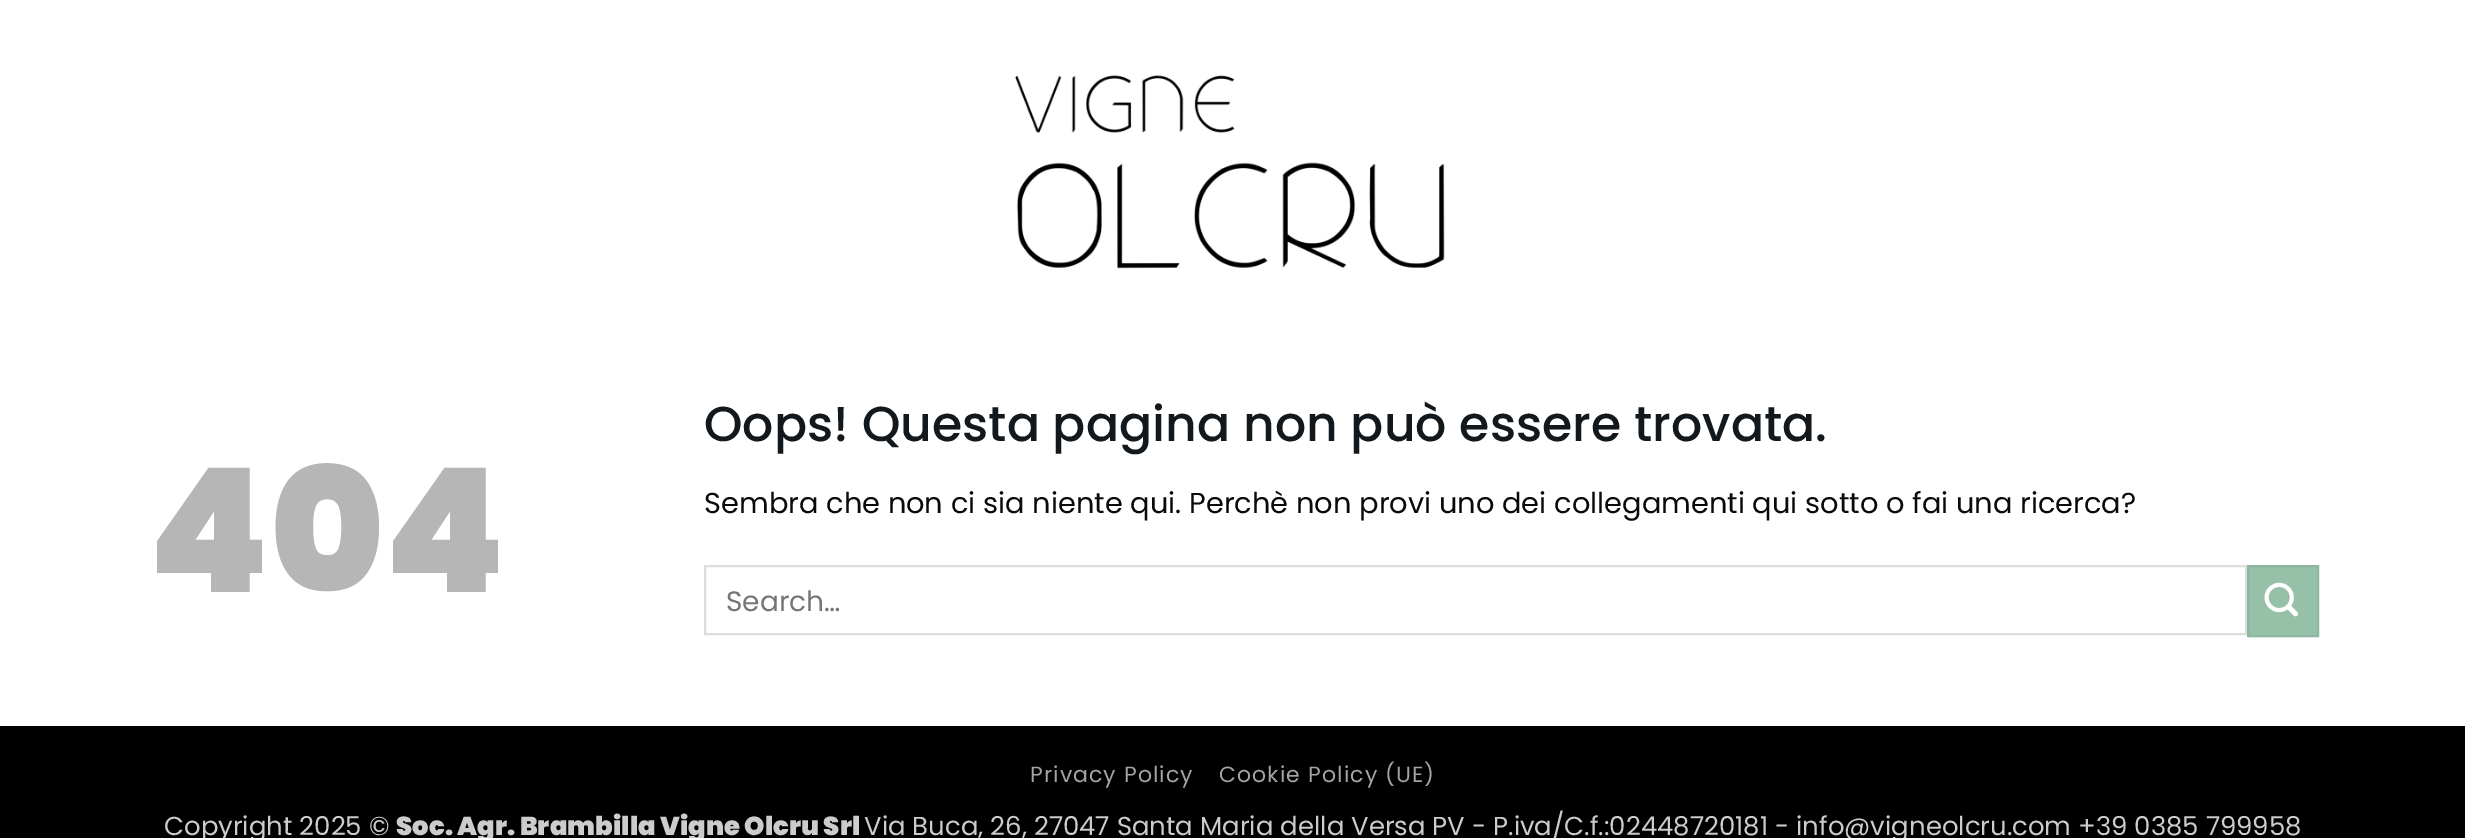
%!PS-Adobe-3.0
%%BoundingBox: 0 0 2465 838
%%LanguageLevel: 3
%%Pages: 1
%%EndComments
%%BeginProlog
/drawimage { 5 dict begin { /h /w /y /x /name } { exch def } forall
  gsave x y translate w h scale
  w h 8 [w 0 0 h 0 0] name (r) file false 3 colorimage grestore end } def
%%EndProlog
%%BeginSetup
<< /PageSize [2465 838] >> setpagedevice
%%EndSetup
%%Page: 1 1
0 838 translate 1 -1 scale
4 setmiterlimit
1 setgray
0 0 2465 838 rectfill
(images/1.raw) 1015 75 430 194 drawimage
0.867 setgray
2 setlinewidth
705 566 1541 68 rectstroke
0.592 0.753 0.659 setrgbcolor
newpath 2248 566 moveto 2318 566 lineto 2318 636 lineto 2248 636 lineto closepath gsave fill grestore
0.561 0.714 0.627 setrgbcolor
stroke
(images/2.raw) 2264 582 34 35 drawimage
0 setgray
0 726 2465 112 rectfill
/Poppins-Black [173 0 0 -173 0 0] selectfont
0.714 setgray
148 592 moveto (404) show
/Poppins-Medium [49 0 0 -49 0 0] selectfont
0.071 0.094 0.11 setrgbcolor
704 441 moveto (Oops! Questa pagina non può essere trovata.) show
/Poppins-Regular [28.85 0 0 -28.85 0 0] selectfont
0.039 setgray
704 513 moveto (Sembra che non ci sia niente qui. Perchè non provi uno dei collegamenti qui sotto o fai una ricerca?) show
/Poppins-Regular [28 0 0 -28 0 0] selectfont
0.459 setgray
726 611 moveto (Search…) show
/Poppins-Regular [22 0 0 -22 0 0] selectfont
0.639 setgray
1030 782 moveto 1.1 0 (Privacy Policy) ashow
1219 782 moveto 1.1 0 (Cookie Policy \(UE\)) ashow
/Poppins-Regular [25.95 0 0 -25.95 0 0] selectfont
0.8 setgray
164 835 moveto (Copyright 2025 ©) show
/Poppins-Black [25.95 0 0 -25.95 0 0] selectfont
396 835 moveto (Soc. Agr. Brambilla Vigne Olcru Srl) show
/Poppins-Regular [25.95 0 0 -25.95 0 0] selectfont
864 835 moveto (Via Buca, 26, 27047 Santa Maria della Versa PV - P.iva/C.f.:02448720181 - info@vigneolcru.com +39 0385 799958) show
showpage
%%EOF
